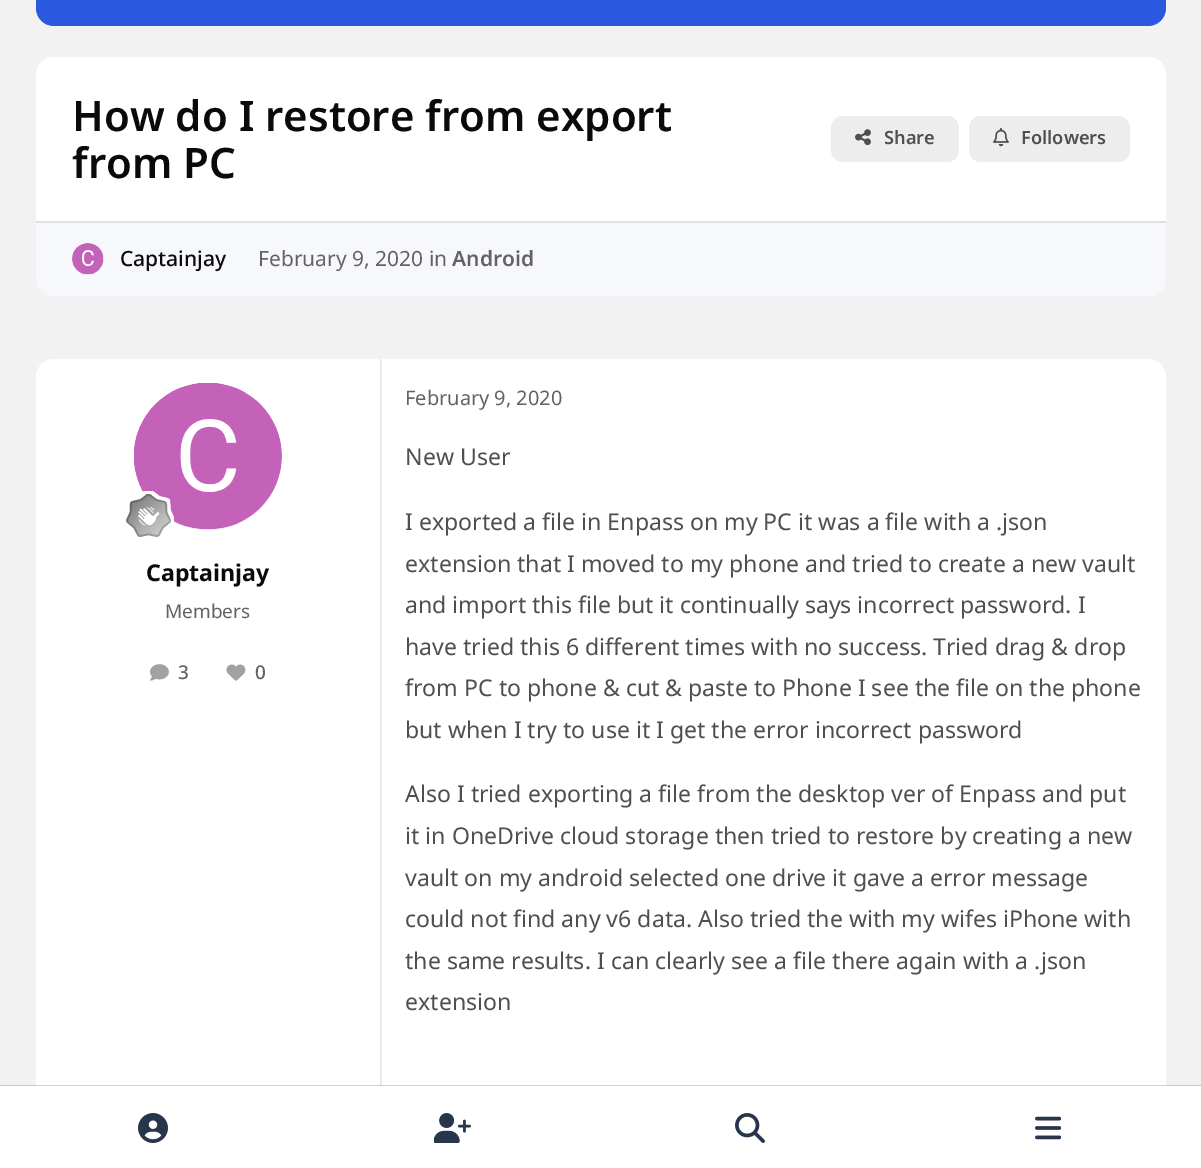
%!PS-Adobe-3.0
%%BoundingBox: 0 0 1201 1168
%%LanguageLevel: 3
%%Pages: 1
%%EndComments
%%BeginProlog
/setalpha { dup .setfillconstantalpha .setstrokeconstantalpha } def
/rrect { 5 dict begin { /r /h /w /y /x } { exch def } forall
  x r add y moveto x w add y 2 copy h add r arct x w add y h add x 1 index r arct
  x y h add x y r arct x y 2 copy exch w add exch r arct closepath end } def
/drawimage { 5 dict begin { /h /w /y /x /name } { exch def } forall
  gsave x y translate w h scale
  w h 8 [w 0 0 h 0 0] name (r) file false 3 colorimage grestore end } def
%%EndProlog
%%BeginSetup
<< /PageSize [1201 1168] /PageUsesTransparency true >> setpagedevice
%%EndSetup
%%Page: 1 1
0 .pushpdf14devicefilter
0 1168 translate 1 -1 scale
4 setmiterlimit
0.949 setgray
0 0 1201 1168 rectfill
0.165 0.349 0.875 setrgbcolor
36 -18 1130 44 18 rrect fill
1 setgray
36 57 1130 239 18 rrect fill
0.929 setgray
831 116 128 46 12 rrect fill
(images/1.raw) 855 129 16 17 drawimage
969 116 161 46 12 rrect fill
(images/2.raw) 993 128 16 19 drawimage
0.969 0.973 0.984 setrgbcolor
newpath 36 221 moveto 1166 221 lineto 1166 278 lineto 1166 288 1158 296 1148 296 curveto 54 296 lineto 44 296 36 288 36 278 curveto closepath fill
0.878 setgray
36 221 1130 2 rectfill
0.898 0.918 0.949 setrgbcolor
newpath 88 259 16 0 360 arc closepath fill
(images/3.raw) 72 243 32 32 drawimage
1 setgray
36 359 1130 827 18 rrect fill
0.898 0.918 0.949 setrgbcolor
380 359 2 727 rectfill
134 383 148 147 73.5 rrect fill
(images/4.raw) 134 383 148 147 drawimage
(images/5.raw) 126 491 48 46 drawimage
(images/6.raw) 150 664 19 17 drawimage
(images/7.raw) 226 664 20 17 drawimage
0.25 setalpha
0.31 setgray
newpath 0 1085 moveto 0 1086 lineto 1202 1086 lineto 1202 1167 lineto 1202 1085 lineto closepath fill
1 setalpha
1 setgray
0 1086 1201 82 rectfill
(images/8.raw) 138 1113 30 30 drawimage
(images/9.raw) 434 1113 37 30 drawimage
(images/10.raw) 735 1113 30 30 drawimage
(images/11.raw) 1035 1116 26 24 drawimage
/NotoSans-SemiBold [42 0 0 -42 0 0] selectfont
0.039 setgray
72 131 moveto (How do I restore from export) show
72 178 moveto (from PC) show
/NotoSans-SemiBold [18.25 0 0 -18.25 0 0] selectfont
0.31 setgray
884 144 moveto (Share) show
1021 144 moveto (Followers) show
/NotoSans-Medium [21 0 0 -21 0 0] selectfont
0.039 setgray
120 266 moveto (Captainjay) show
/NotoSans-Regular [21 0 0 -21 0 0] selectfont
0.388 setgray
258 266 moveto (February 9, 2020 in) show
/NotoSans-SemiBold [21 0 0 -21 0 0] selectfont
452 266 moveto (Android) show
/NotoSans-Bold [23.1 0 0 -23.1 0 0] selectfont
0.039 setgray
146 581 moveto (Captainjay) show
/NotoSans-Regular [19 0 0 -19 0 0] selectfont
0.388 setgray
165 618 moveto (Members) show
/NotoSans-Medium [19 0 0 -19 0 0] selectfont
178 679 moveto (3) show
255 679 moveto (0) show
/NotoSans-Regular [20 0 0 -20 0 0] selectfont
405 405 moveto (February 9, 2020) show
/NotoSans-Regular [23.1 0 0 -23.1 0 0] selectfont
0.31 setgray
405 465 moveto (New User) show
405 530 moveto (I exported a file in Enpass on my PC it was a file with a .json) show
405 572 moveto (extension that I moved to my phone and tried to create a new vault) show
405 613 moveto (and import this file but it continually says incorrect password. I) show
405 655 moveto (have tried this 6 different times with no success. Tried drag & drop) show
405 696 moveto (from PC to phone & cut & paste to Phone I see the file on the phone) show
405 738 moveto (but when I try to use it I get the error incorrect password) show
405 802 moveto (Also I tried exporting a file from the desktop ver of Enpass and put) show
405 844 moveto (it in OneDrive cloud storage then tried to restore by creating a new) show
405 886 moveto (vault on my android selected one drive it gave a error message) show
405 927 moveto (could not find any v6 data. Also tried the with my wifes iPhone with) show
405 969 moveto (the same results. I can clearly see a file there again with a .json) show
405 1010 moveto (extension) show
.poppdf14devicefilter showpage
%%EOF
